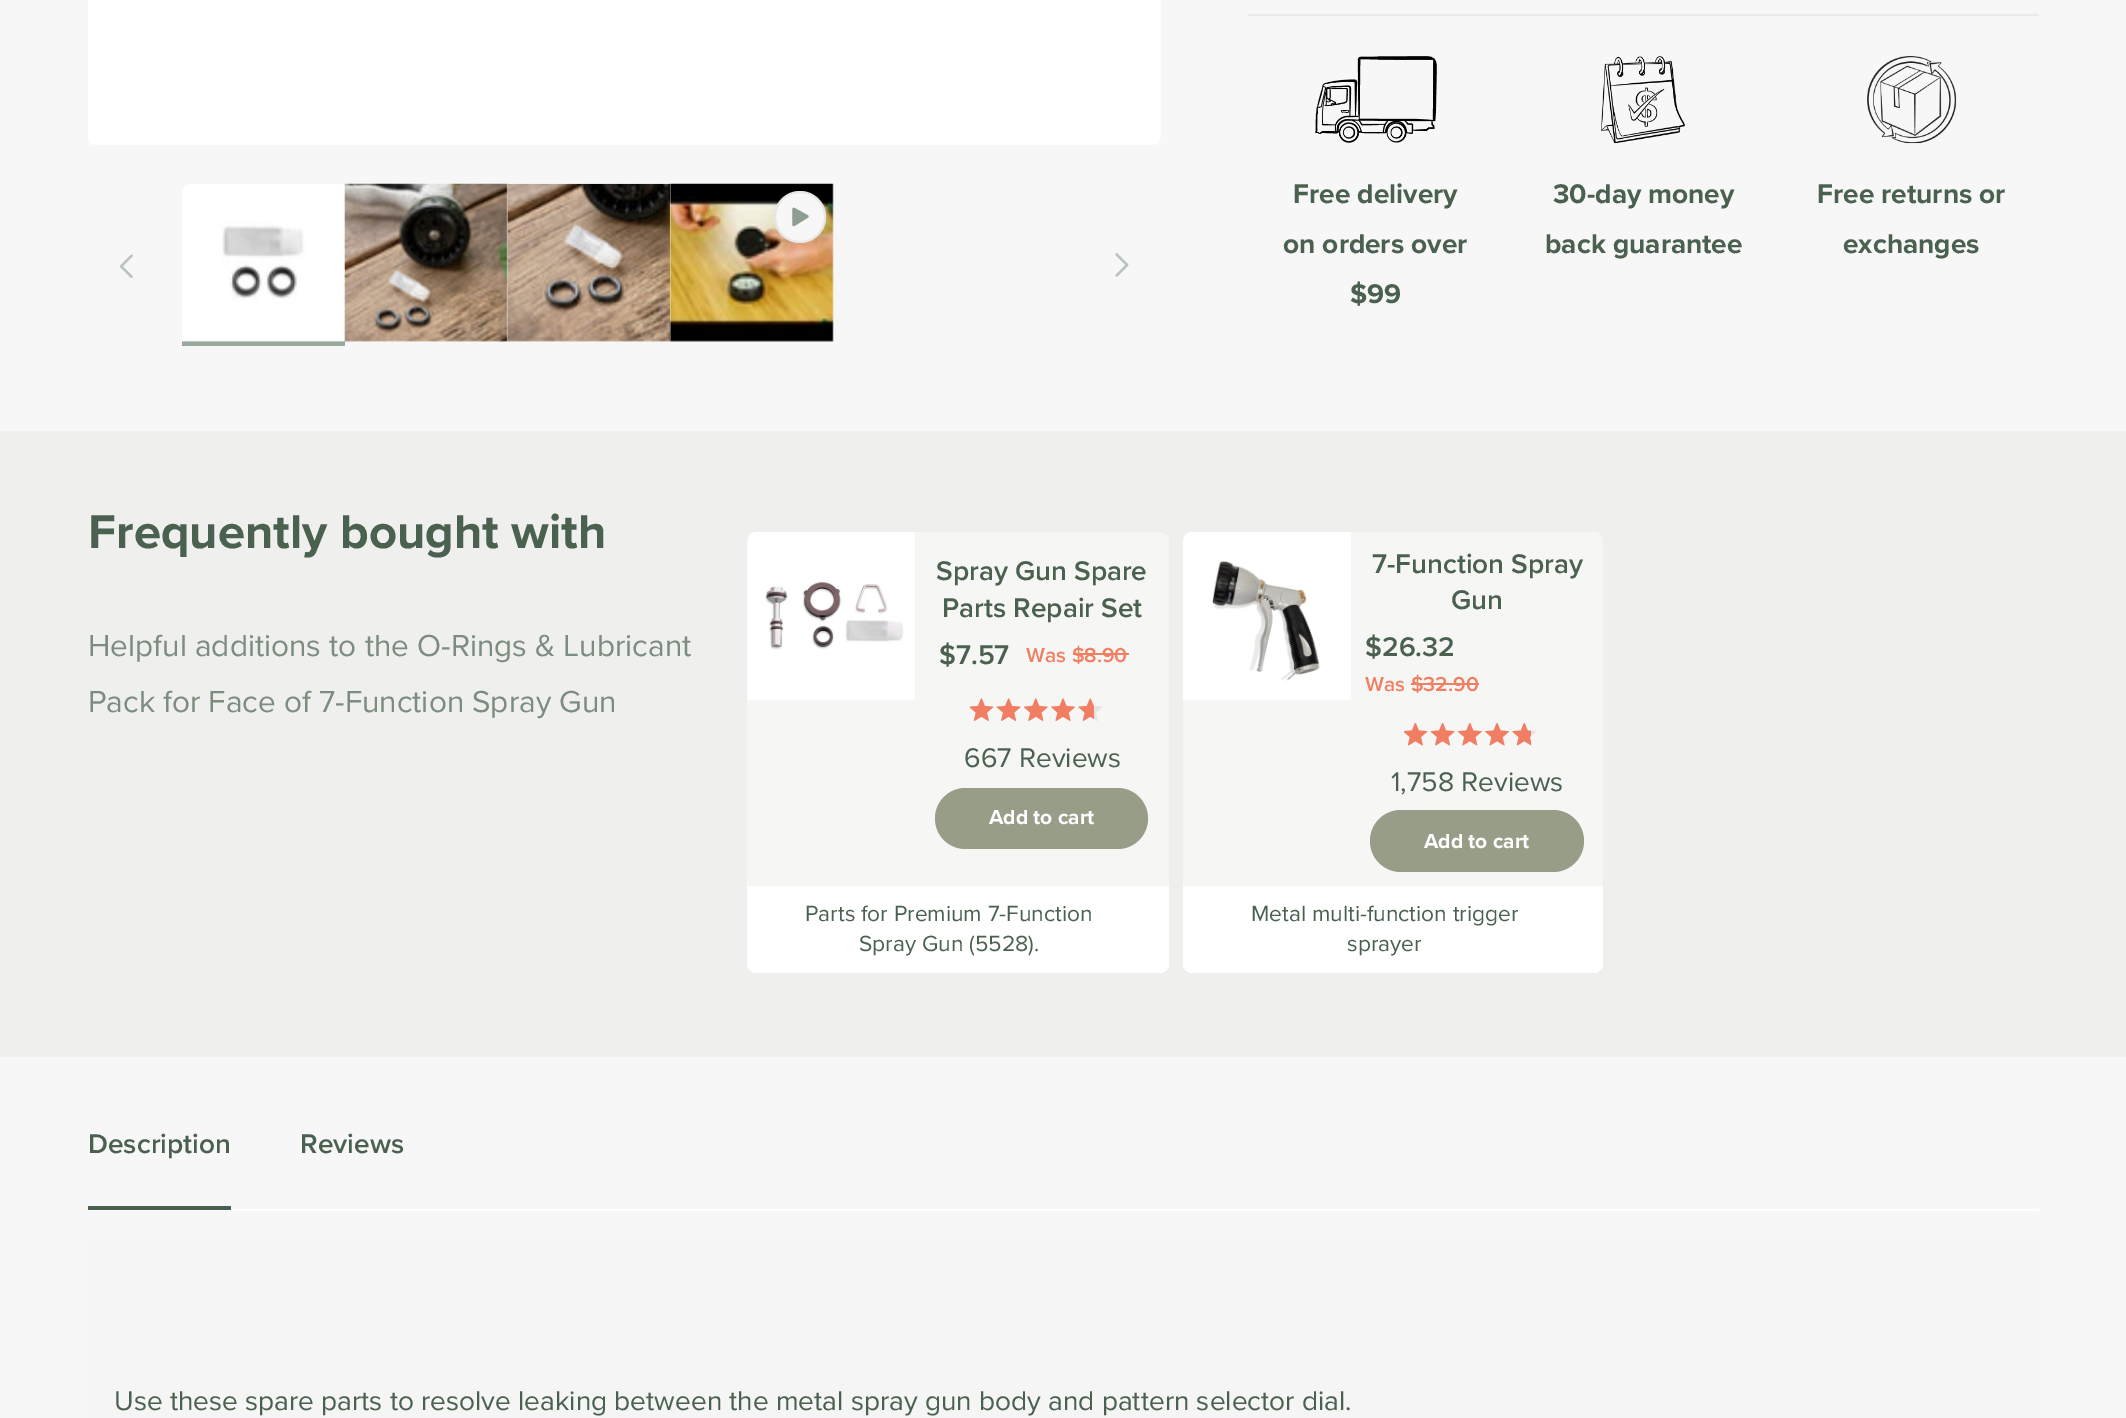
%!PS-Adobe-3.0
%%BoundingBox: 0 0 2126 1418
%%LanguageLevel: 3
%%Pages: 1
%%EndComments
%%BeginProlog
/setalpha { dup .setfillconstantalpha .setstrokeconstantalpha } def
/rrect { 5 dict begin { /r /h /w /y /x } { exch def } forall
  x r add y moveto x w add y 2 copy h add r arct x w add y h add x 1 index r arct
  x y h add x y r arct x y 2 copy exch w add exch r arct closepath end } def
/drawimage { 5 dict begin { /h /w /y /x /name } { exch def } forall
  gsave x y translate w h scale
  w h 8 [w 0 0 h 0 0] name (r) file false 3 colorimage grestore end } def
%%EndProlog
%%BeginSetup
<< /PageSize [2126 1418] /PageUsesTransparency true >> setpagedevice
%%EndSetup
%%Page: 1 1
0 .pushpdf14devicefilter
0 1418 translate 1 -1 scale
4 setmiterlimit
0.969 setgray
0 0 2126 1418 rectfill
(images/1.raw) 88 0 1073 145 drawimage
(images/2.raw) 119 254 14 24 drawimage
0.588 0.663 0.612 setrgbcolor
182 341 163 5 rectfill
(images/3.raw) 182 184 163 158 drawimage
(images/4.raw) 344 183 164 159 drawimage
(images/5.raw) 507 183 164 159 drawimage
(images/6.raw) 669 183 165 159 drawimage
0.969 setgray
newpath 800 217 26 0 360 arc closepath fill
0.1 setalpha
0.29 0.38 0.314 setrgbcolor
2 setlinewidth
newpath 800 217 25 0 360 arc closepath stroke
1 setalpha
(images/7.raw) 792 207 17 20 drawimage
(images/8.raw) 1115 253 14 24 drawimage
0.914 0.922 0.918 setrgbcolor
1248 14 791 2 rectfill
(images/9.raw) 1315 56 122 87 drawimage
(images/10.raw) 1601 56 84 88 drawimage
(images/11.raw) 1867 56 90 88 drawimage
0.937 0.937 0.933 setrgbcolor
0 431 2126 626 rectfill
0.965 0.965 0.961 setrgbcolor
747 532 422 441 9 rrect fill
(images/12.raw) 747 532 168 168 drawimage
0.945 0.498 0.384 setrgbcolor
1073 653 56 2 rectfill
(images/13.raw) 969 698 133 23 drawimage
(images/14.raw) 970 698 124 23 drawimage
0.596 0.616 0.529 setrgbcolor
935 788 213 61 30.5 rrect fill
1 setgray
newpath 747 886 moveto 1169 886 lineto 1169 964 lineto 1169 969 1165 973 1160 973 curveto 756 973 lineto 751 973 747 969 747 964 curveto closepath fill
0.965 0.965 0.961 setrgbcolor
1183 532 420 441 9 rrect fill
(images/15.raw) 1183 532 168 168 drawimage
0.945 0.498 0.384 setrgbcolor
1411 683 68 2 rectfill
(images/16.raw) 1403 723 133 23 drawimage
(images/17.raw) 1404 723 127 23 drawimage
0.596 0.616 0.529 setrgbcolor
1370 810 214 62 31 rrect fill
1 setgray
newpath 1183 886 moveto 1603 886 lineto 1603 964 lineto 1603 969 1599 973 1594 973 curveto 1192 973 lineto 1187 973 1183 969 1183 964 curveto closepath fill
88 1209 1951 2 rectfill
0.29 0.38 0.314 setrgbcolor
88 1206 143 4 rectfill
0.957 0.961 0.957 setrgbcolor
88 1239 1951 179 rectfill
/ProximaNova-Bold [28 0 0 -28 0 0] selectfont
0.29 0.38 0.314 setrgbcolor
1293 203 moveto (Free delivery) show
1283 253 moveto (on orders over) show
1350 303 moveto ($99) show
1553 203 moveto (30-day money) show
1545 253 moveto (back guarantee) show
1817 203 moveto (Free returns or) show
1843 253 moveto (exchanges) show
/ProximaNova-Bold [49 0 0 -49 0 0] selectfont
88 548 moveto (Frequently bought with) show
/ProximaNova-Regular [31.5 0 0 -31.5 0 0] selectfont
0.486 0.549 0.498 setrgbcolor
88 656 moveto (Helpful additions to the O-Rings & Lubricant) show
88 712 moveto (Pack for Face of 7-Function Spray Gun) show
/ProximaNova-SemiBold [28 0 0 -28 0 0] selectfont
0.29 0.38 0.314 setrgbcolor
936 580 moveto (Spray Gun Spare) show
942 617 moveto (Parts Repair Set) show
939 664 moveto ($7.57) show
/ProximaNova-SemiBold [21 0 0 -21 0 0] selectfont
0.945 0.498 0.384 setrgbcolor
1026 662 moveto (Was $8.90) show
/ProximaNova-Regular [28 0 0 -28 0 0] selectfont
0.29 0.38 0.314 setrgbcolor
964 767 moveto (667 Reviews) show
/ProximaNova-Bold [21 0 0 -21 0 0] selectfont
1 setgray
989 824 moveto (Add to cart) show
/ProximaNova-Regular [22.75 0 0 -22.75 0 0] selectfont
0.29 0.38 0.314 setrgbcolor
805 921 moveto (Parts for Premium 7-Function) show
859 951 moveto (Spray Gun \(5528\).) show
/ProximaNova-SemiBold [28 0 0 -28 0 0] selectfont
1372 573 moveto (7-Function Spray) show
1451 609 moveto (Gun) show
1365 656 moveto ($26.32) show
/ProximaNova-SemiBold [21 0 0 -21 0 0] selectfont
0.945 0.498 0.384 setrgbcolor
1365 691 moveto (Was $32.90) show
/ProximaNova-Regular [28 0 0 -28 0 0] selectfont
0.29 0.38 0.314 setrgbcolor
1391 791 moveto (1,758 Reviews) show
/ProximaNova-Bold [21 0 0 -21 0 0] selectfont
1 setgray
1424 848 moveto (Add to cart) show
/ProximaNova-Regular [22.75 0 0 -22.75 0 0] selectfont
0.29 0.38 0.314 setrgbcolor
1251 921 moveto (Metal multi-function trigger) show
1347 951 moveto (sprayer) show
/ProximaNova-SemiBold [28 0 0 -28 0 0] selectfont
88 1153 moveto (Description) show
300 1153 moveto (Reviews) show
/ProximaNova-Regular [28 0 0 -28 0 0] selectfont
114 1410 moveto (Use these spare parts to resolve leaking between the metal spray gun body and pattern selector dial.) show
.poppdf14devicefilter showpage
%%EOF
